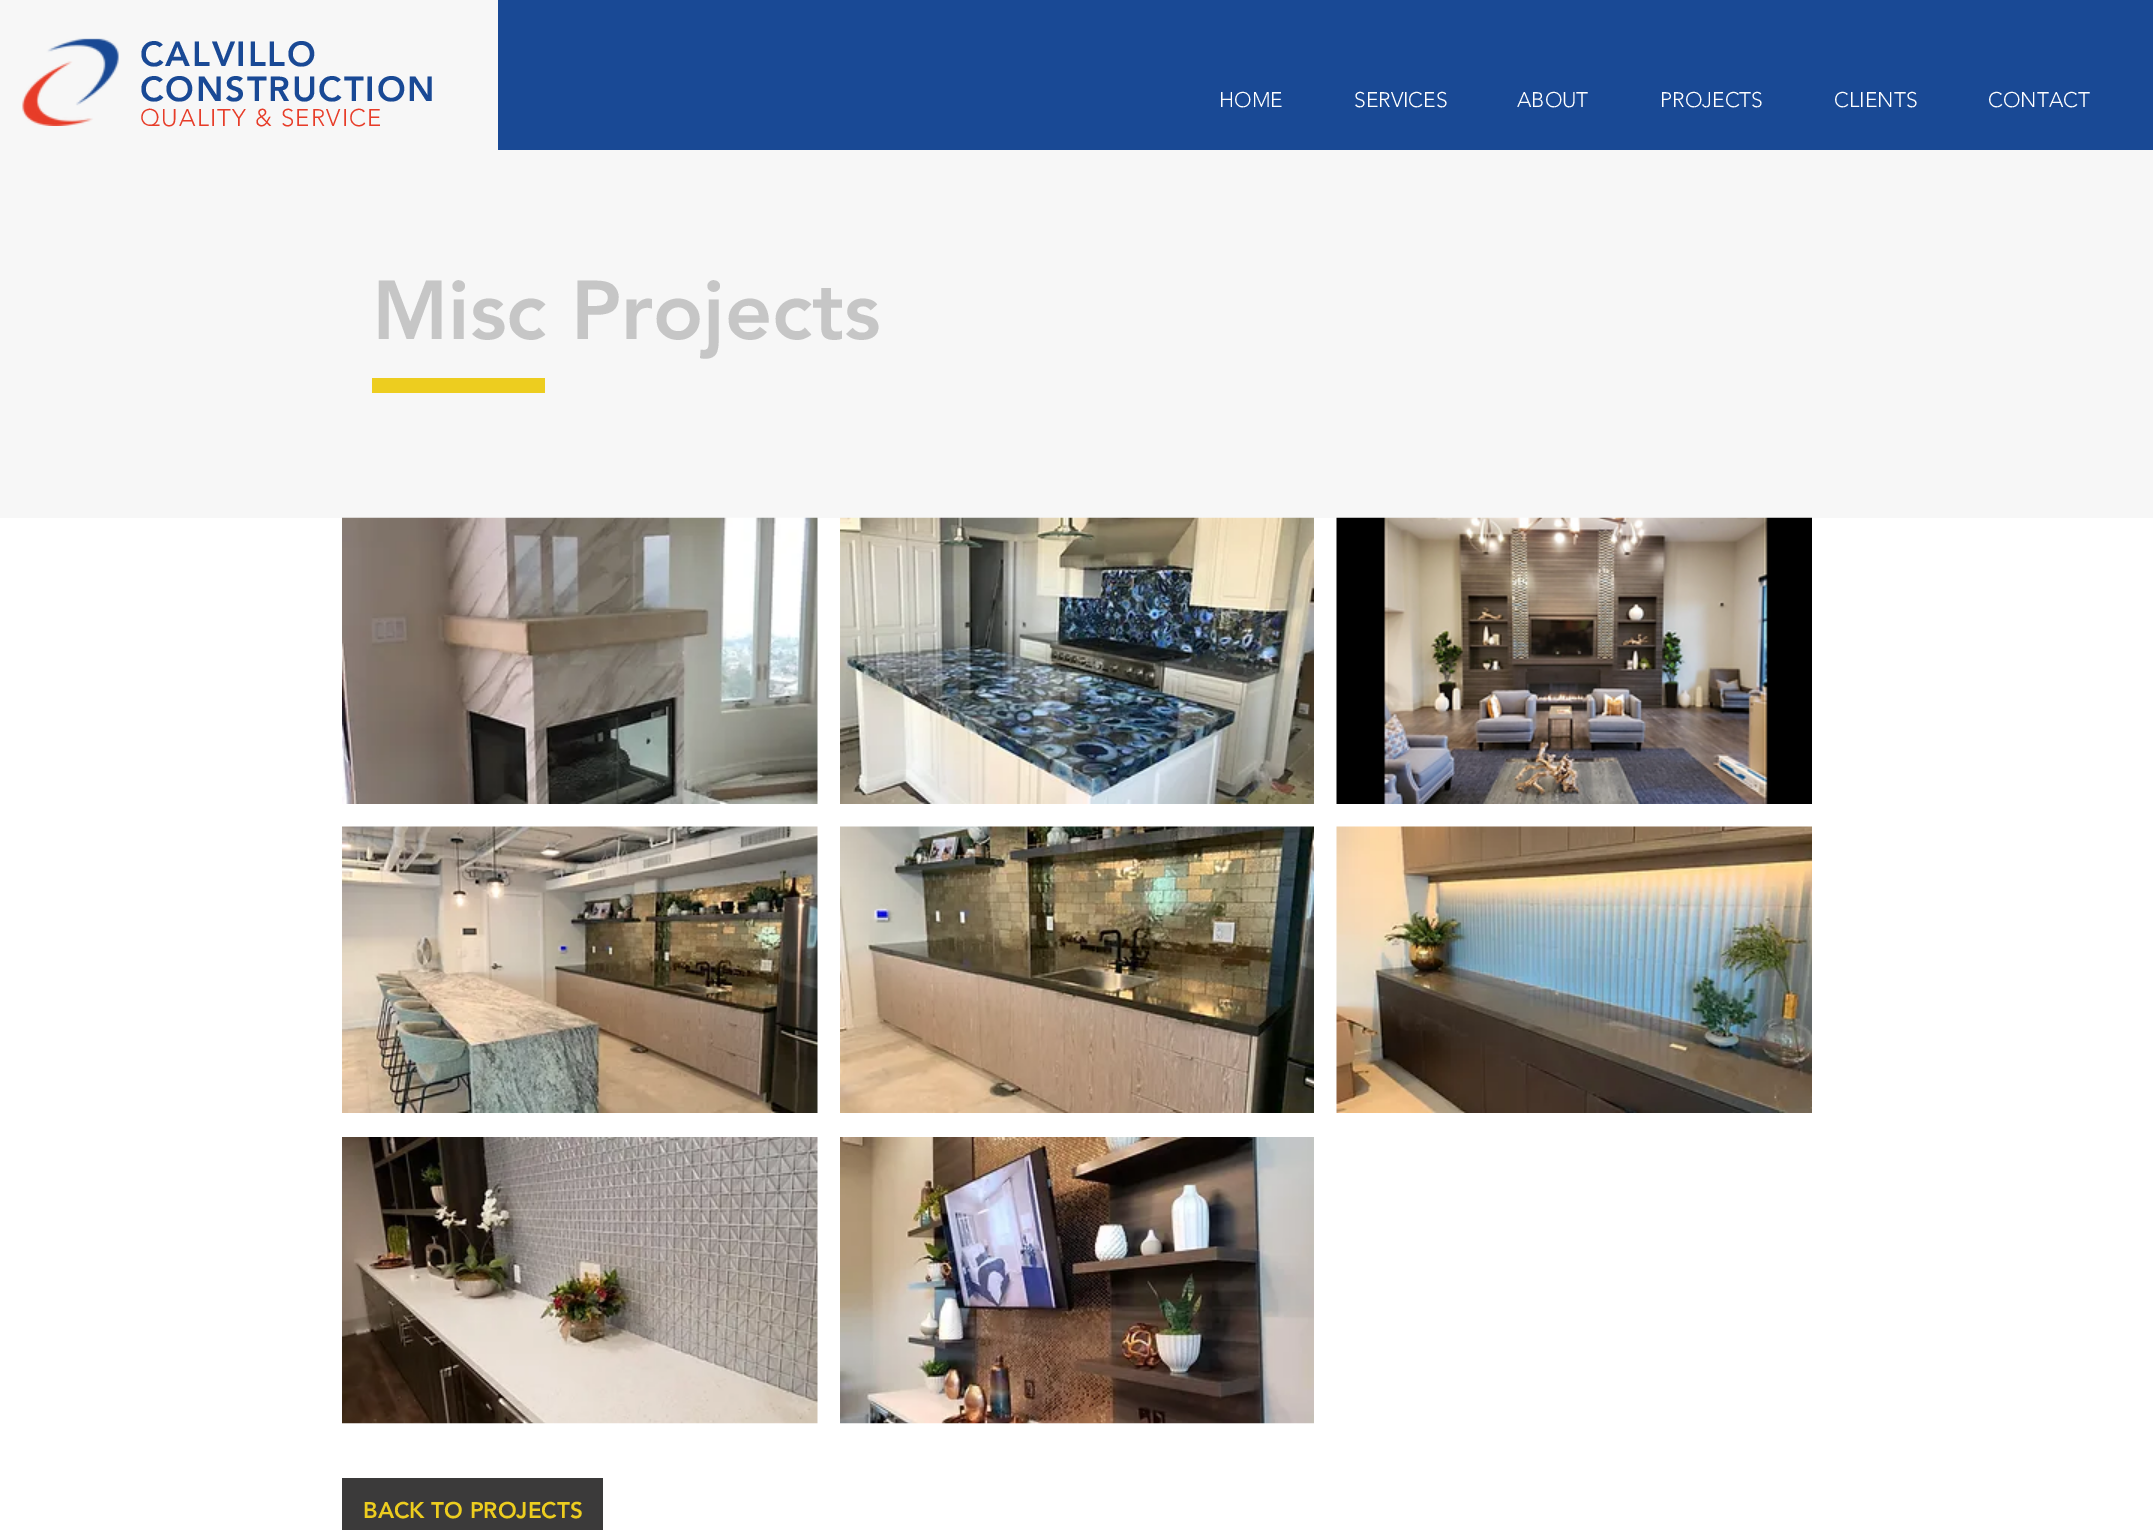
%!PS-Adobe-3.0
%%BoundingBox: 0 0 2153 1530
%%LanguageLevel: 3
%%Pages: 1
%%EndComments
%%BeginProlog
/drawimage { 5 dict begin { /h /w /y /x /name } { exch def } forall
  gsave x y translate w h scale
  w h 8 [w 0 0 h 0 0] name (r) file false 3 colorimage grestore end } def
%%EndProlog
%%BeginSetup
<< /PageSize [2153 1530] >> setpagedevice
%%EndSetup
%%Page: 1 1
0 1530 translate 1 -1 scale
4 setmiterlimit
0.969 setgray
0 0 2153 1530 rectfill
(images/1.raw) 22 38 97 88 drawimage
0.098 0.286 0.584 setrgbcolor
498 0 1655 150 rectfill
0.929 0.804 0.122 setrgbcolor
372 378 173 15 rectfill
1 setgray
0 518 2153 1012 rectfill
(images/2.raw) 342 517 476 287 drawimage
(images/3.raw) 840 517 474 287 drawimage
(images/4.raw) 1336 517 476 287 drawimage
(images/5.raw) 342 826 476 287 drawimage
(images/6.raw) 840 826 474 287 drawimage
(images/7.raw) 1336 826 476 287 drawimage
(images/8.raw) 342 1137 476 287 drawimage
(images/9.raw) 840 1137 474 287 drawimage
0.231 0.227 0.227 setrgbcolor
342 1478 261 52 rectfill
/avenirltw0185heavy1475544-Black [34.5 0 0 -34.5 0 0] selectfont
0.098 0.286 0.584 setrgbcolor
140 66 moveto 1.75 0 (CALVILLO) ashow
140 101 moveto 1.75 0 (CONSTRUCTION) ashow
/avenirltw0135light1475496-Light [24 0 0 -24 0 0] selectfont
0.906 0.235 0.157 setrgbcolor
140 126 moveto 1.25 0 (QUALITY & SERVICE) ashow
/avenirltw0135light1475496-Light [21 0 0 -21 0 0] selectfont
1 setgray
1219 107 moveto (HOME) show
1354 107 moveto (SERVICES) show
1517 107 moveto (ABOUT) show
1660 107 moveto (PROJECTS) show
1834 107 moveto (CLIENTS) show
1988 107 moveto (CONTACT) show
/avenirltw0185heavy1475544-Black [82.5 0 0 -82.5 0 0] selectfont
0.776 setgray
372 339 moveto (Misc Projects) show
/avenirltw0185heavy1475544-Black [22.5 0 0 -22.5 0 0] selectfont
0.929 0.804 0.122 setrgbcolor
363 1518 moveto (BACK TO PROJECTS) show
showpage
%%EOF
